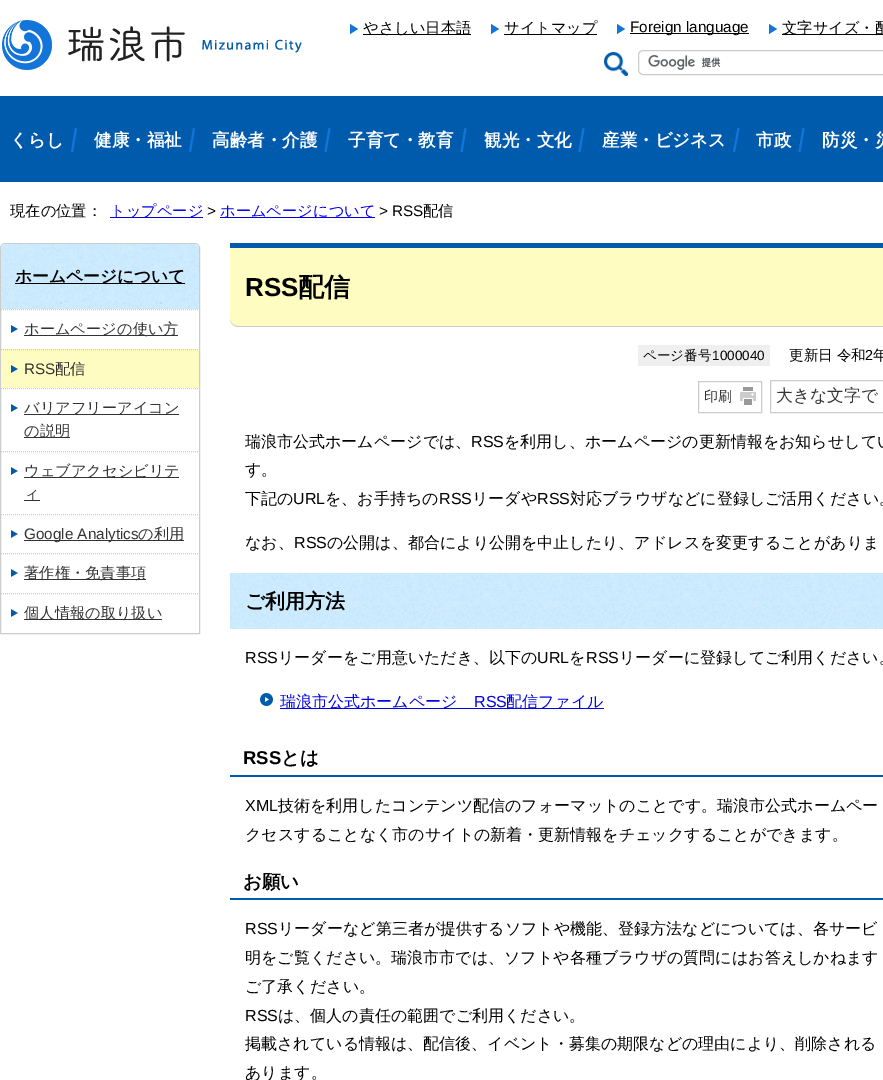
%!PS-Adobe-3.0
%%BoundingBox: 0 0 883 1080
%%LanguageLevel: 3
%%Pages: 1
%%EndComments
%%BeginProlog
/drawimage { 5 dict begin { /h /w /y /x /name } { exch def } forall
  gsave x y translate w h scale
  w h 8 [w 0 0 h 0 0] name (r) file false 3 colorimage grestore end } def
%%EndProlog
%%BeginSetup
<< /PageSize [883 1080] >> setpagedevice
%%EndSetup
%%Page: 1 1
0 1080 translate 1 -1 scale
4 setmiterlimit
1 setgray
0 0 883 1080 rectfill
(images/1.raw) 2 20 300 50 drawimage
0.075 0.455 0.851 setrgbcolor
newpath 350 34 moveto 350 24 lineto 358 29 lineto closepath fill
0 setgray
363 34 108 1 rectfill
0.075 0.455 0.851 setrgbcolor
newpath 491 34 moveto 491 24 lineto 499 29 lineto closepath fill
0 setgray
504 34 93 1 rectfill
0.075 0.455 0.851 setrgbcolor
newpath 617 34 moveto 617 24 lineto 625 29 lineto closepath fill
0 setgray
630 33 119 1 rectfill
0.075 0.455 0.851 setrgbcolor
newpath 769 34 moveto 769 24 lineto 777 29 lineto closepath fill
0 setgray
782 34 101 1 rectfill
(images/2.raw) 604 52 24 24 drawimage
(images/3.raw) 648 55 73 15 drawimage
0.8 setgray
newpath 643 50.5 moveto 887.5 50.5 lineto 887.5 74.5 lineto 643 74.5 lineto 640.5 74.5 638.5 72.5 638.5 70 curveto 638.5 55 lineto 638.5 52.5 640.5 50.5 643 50.5 curveto closepath stroke
0 0.357 0.675 setrgbcolor
0 96 883 86 rectfill
0.075 0.455 0.851 setrgbcolor
newpath 75 128 moveto 77 128.5 lineto 73 152 lineto 71 151.5 lineto closepath fill
newpath 193 128 moveto 195 128.5 lineto 191 152 lineto 189 151.5 lineto closepath fill
newpath 328.5 128 moveto 330.5 128.5 lineto 326.5 152 lineto 324.5 151.5 lineto closepath fill
newpath 464.5 128 moveto 466.5 128.5 lineto 462.5 152 lineto 460.5 151.5 lineto closepath fill
newpath 582.5 128 moveto 584.5 128.5 lineto 580.5 152 lineto 578.5 151.5 lineto closepath fill
newpath 737.5 128 moveto 739.5 128.5 lineto 735 152 lineto 733 151.5 lineto closepath fill
newpath 802.5 128 moveto 804.5 128.5 lineto 800.5 152 lineto 798.5 151.5 lineto closepath fill
0 0 0.933 setrgbcolor
110 217 93 1 rectfill
220 217 155 1 rectfill
0.8 setgray
newpath 5 243.5 moveto 195 243.5 lineto 197.5 243.5 199.5 245.5 199.5 248 curveto 199.5 633.5 lineto 0.5 633.5 lineto 0.5 248 lineto 0.5 245.5 2.5 243.5 5 243.5 curveto closepath stroke
(images/4.raw) 1 244 198 65 drawimage
0 setgray
15 283 170 1 rectfill
(images/5.raw) 11 325 7 8 drawimage
0.8 setgray
[1 1] 0 setdash
newpath 1 309.5 moveto 199 309.5 lineto stroke
0.2 setgray
24 335 154 1 rectfill
1 0.988 0.757 setrgbcolor
1 349 198 39 rectfill
(images/6.raw) 11 365 7 8 drawimage
0.8 setgray
newpath 1 349.5 moveto 199 349.5 lineto stroke
(images/5.raw) 11 404 7 8 drawimage
newpath 1 388.5 moveto 199 388.5 lineto stroke
0.2 setgray
24 414 155 1 rectfill
24 437 46 1 rectfill
(images/5.raw) 11 467 7 8 drawimage
0.8 setgray
newpath 1 451.5 moveto 199 451.5 lineto stroke
0.2 setgray
24 477 155 1 rectfill
24 500 16 1 rectfill
(images/5.raw) 11 530 7 8 drawimage
0.8 setgray
newpath 1 514.5 moveto 199 514.5 lineto stroke
0.2 setgray
24 540 160 1 rectfill
(images/5.raw) 11 569 7 8 drawimage
0.8 setgray
newpath 1 553.5 moveto 199 553.5 lineto stroke
0.2 setgray
24 579 122 1 rectfill
(images/5.raw) 11 609 7 8 drawimage
0.8 setgray
newpath 1 593.5 moveto 199 593.5 lineto stroke
0.2 setgray
24 619 138 1 rectfill
1 0.988 0.757 setrgbcolor
newpath 230 243 moveto 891 243 lineto 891 319 lineto 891 323.5 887.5 327 883 327 curveto 238 327 lineto 233.5 327 230 323.5 230 319 curveto closepath fill
0 0.357 0.675 setrgbcolor
230 243 653 5 rectfill
0.8 setgray
newpath 238 327 moveto 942 327 lineto 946 327 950 323 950 319 curveto 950 323 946 326 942 326 curveto 238 326 lineto 234 326 230 323 230 319 curveto 230 323 234 327 238 327 curveto closepath fill
0.937 setgray
638 345 132 21 rectfill
0.8 setgray
[] 0 setdash
698.5 381.5 63 31 rectstroke
(images/7.raw) 740 387 16 18 drawimage
770.5 380.5 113 32 rectstroke
0.796 0.918 0.996 setrgbcolor
879 573 4 56 rectfill
(images/8.raw) 230 573 649 56 drawimage
(images/9.raw) 260 693 13 13 drawimage
0 0 0.933 setrgbcolor
280 708 324 1 rectfill
0 0.357 0.675 setrgbcolor
230 775 653 2 rectfill
230 898 653 2 rectfill
/WenQuanYiZenHei-Medium [15.25 0 0 -15.25 0 0] selectfont
0 setgray
363 33 moveto (やさしい日本語) show
504 33 moveto (サイトマップ) show
/LiberationSans-Regular [15.25 0 0 -15.25 0 0] selectfont
630 32 moveto (Foreign language) show
/WenQuanYiZenHei-Medium [15.25 0 0 -15.25 0 0] selectfont
782 33 moveto (文字サイズ・配) show
/WenQuanYiZenHei-Bold [17.5 0 0 -17.5 0 0] selectfont
1 setgray
10 146 moveto (くらし) show
94 146 moveto (健康・福祉) show
212 146 moveto (高齢者・介護) show
348 146 moveto (子育て・教育) show
484 146 moveto (観光・文化) show
602 146 moveto (産業・ビジネス) show
756 146 moveto (市政) show
822 146 moveto (防災・災) show
/WenQuanYiZenHei-Medium [15.25 0 0 -15.25 0 0] selectfont
0 setgray
10 216 moveto (現在の位置：) show
0 0 0.933 setrgbcolor
110 216 moveto (トップページ) show
/LiberationSans-Regular [15.25 0 0 -15.25 0 0] selectfont
0 setgray
207 216 moveto (>) show
/WenQuanYiZenHei-Medium [15.25 0 0 -15.25 0 0] selectfont
0 0 0.933 setrgbcolor
220 216 moveto (ホームページについて) show
/LiberationSans-Regular [15.25 0 0 -15.25 0 0] selectfont
0 setgray
379 216 moveto (> RSS) show
/WenQuanYiZenHei-Medium [15.25 0 0 -15.25 0 0] selectfont
423 216 moveto (配信) show
/WenQuanYiZenHei-Bold [16.75 0 0 -16.75 0 0] selectfont
15 282 moveto (ホームページについて) show
/WenQuanYiZenHei-Medium [15.25 0 0 -15.25 0 0] selectfont
0.2 setgray
24 334 moveto (ホームページの使い方) show
/LiberationSans-Regular [15.25 0 0 -15.25 0 0] selectfont
24 374 moveto (RSS) show
/WenQuanYiZenHei-Medium [15.25 0 0 -15.25 0 0] selectfont
55 374 moveto (配信) show
24 413 moveto (バリアフリーアイコン) show
24 436 moveto (の説明) show
24 476 moveto (ウェブアクセシビリテ) show
24 499 moveto (ィ) show
/LiberationSans-Regular [15.25 0 0 -15.25 0 0] selectfont
24 539 moveto (Google Analytics) show
/WenQuanYiZenHei-Medium [15.25 0 0 -15.25 0 0] selectfont
138 539 moveto (の利用) show
24 578 moveto (著作権・免責事項) show
24 618 moveto (個人情報の取り扱い) show
/LiberationSans-Bold [26 0 0 -26 0 0] selectfont
0 setgray
245 296 moveto (RSS) show
/WenQuanYiZenHei-Bold [26 0 0 -26 0 0] selectfont
298 296 moveto (配信) show
/WenQuanYiZenHei-Medium [13.5 0 0 -13.5 0 0] selectfont
643 360 moveto (ページ番号) show
/LiberationSans-Regular [13.5 0 0 -13.5 0 0] selectfont
712 360 moveto (1000040) show
/WenQuanYiZenHei-Medium [14.5 0 0 -14.5 0 0] selectfont
789 360 moveto (更新日 令和) show
/LiberationSans-Regular [14.5 0 0 -14.5 0 0] selectfont
865 360 moveto (2) show
/WenQuanYiZenHei-Medium [14.5 0 0 -14.5 0 0] selectfont
873 360 moveto (年) show
/WenQuanYiZenHei-Medium [14 0 0 -14 0 0] selectfont
0.2 setgray
704 401 moveto (印刷) show
/WenQuanYiZenHei-Medium [16.75 0 0 -16.75 0 0] selectfont
776 401 moveto (大きな文字で) show
/WenQuanYiZenHei-Medium [16 0 0 -16 0 0] selectfont
0 setgray
245 447 moveto (瑞浪市公式ホームページでは、) show
/LiberationSans-Regular [16 0 0 -16 0 0] selectfont
471 447 moveto (RSS) show
/WenQuanYiZenHei-Medium [16 0 0 -16 0 0] selectfont
504 447 moveto (を利用し、ホームページの更新情報をお知らせしてい) show
245 475 moveto (す。) show
245 504 moveto (下記の) show
/LiberationSans-Regular [16 0 0 -16 0 0] selectfont
293 504 moveto (URL) show
/WenQuanYiZenHei-Medium [16 0 0 -16 0 0] selectfont
325 504 moveto (を、お手持ちの) show
/LiberationSans-Regular [16 0 0 -16 0 0] selectfont
439 504 moveto (RSS) show
/WenQuanYiZenHei-Medium [16 0 0 -16 0 0] selectfont
472 504 moveto (リーダや) show
/LiberationSans-Regular [16 0 0 -16 0 0] selectfont
537 504 moveto (RSS) show
/WenQuanYiZenHei-Medium [16 0 0 -16 0 0] selectfont
570 504 moveto (対応ブラウザなどに登録しご活用ください。) show
245 548 moveto (なお、) show
/LiberationSans-Regular [16 0 0 -16 0 0] selectfont
294 548 moveto (RSS) show
/WenQuanYiZenHei-Medium [16 0 0 -16 0 0] selectfont
327 548 moveto (の公開は、都合により公開を中止したり、アドレスを変更することがありま) show
/WenQuanYiZenHei-Bold [20 0 0 -20 0 0] selectfont
245 608 moveto (ご利用方法) show
/LiberationSans-Regular [16 0 0 -16 0 0] selectfont
245 663 moveto (RSS) show
/WenQuanYiZenHei-Medium [16 0 0 -16 0 0] selectfont
278 663 moveto (リーダーをご用意いただき、以下の) show
/LiberationSans-Regular [16 0 0 -16 0 0] selectfont
537 663 moveto (URL) show
/WenQuanYiZenHei-Medium [16 0 0 -16 0 0] selectfont
569 663 moveto (を) show
/LiberationSans-Regular [16 0 0 -16 0 0] selectfont
586 663 moveto (RSS) show
/WenQuanYiZenHei-Medium [16 0 0 -16 0 0] selectfont
619 663 moveto (リーダーに登録してご利用ください。) show
0 0 0.933 setrgbcolor
280 707 moveto (瑞浪市公式ホームページ) show
/LiberationSans-Regular [16 0 0 -16 0 0] selectfont
474 707 moveto (RSS) show
/WenQuanYiZenHei-Medium [16 0 0 -16 0 0] selectfont
506 707 moveto (配信ファイル) show
/LiberationSans-Bold [18.5 0 0 -18.5 0 0] selectfont
0 setgray
243 764 moveto (RSS) show
/WenQuanYiZenHei-Bold [18.5 0 0 -18.5 0 0] selectfont
281 764 moveto (とは) show
/LiberationSans-Regular [16 0 0 -16 0 0] selectfont
245 811 moveto (XML) show
/WenQuanYiZenHei-Medium [16 0 0 -16 0 0] selectfont
278 811 moveto (技術を利用したコンテンツ配信のフォーマットのことです。瑞浪市公式ホームペー) show
245 840 moveto (クセスすることなく市のサイトの新着・更新情報をチェックすることができます。) show
/WenQuanYiZenHei-Bold [18.5 0 0 -18.5 0 0] selectfont
243 888 moveto (お願い) show
/LiberationSans-Regular [16 0 0 -16 0 0] selectfont
245 934 moveto (RSS) show
/WenQuanYiZenHei-Medium [16 0 0 -16 0 0] selectfont
278 934 moveto (リーダーなど第三者が提供するソフトや機能、登録方法などについては、各サービ) show
245 963 moveto (明をご覧ください。瑞浪市市では、ソフトや各種ブラウザの質問にはお答えしかねます) show
245 992 moveto (ご了承ください。) show
/LiberationSans-Regular [16 0 0 -16 0 0] selectfont
245 1021 moveto (RSS) show
/WenQuanYiZenHei-Medium [16 0 0 -16 0 0] selectfont
278 1021 moveto (は、個人の責任の範囲でご利用ください。) show
245 1049 moveto (掲載されている情報は、配信後、イベント・募集の期限などの理由により、削除される) show
245 1078 moveto (あります。) show
showpage
%%EOF
